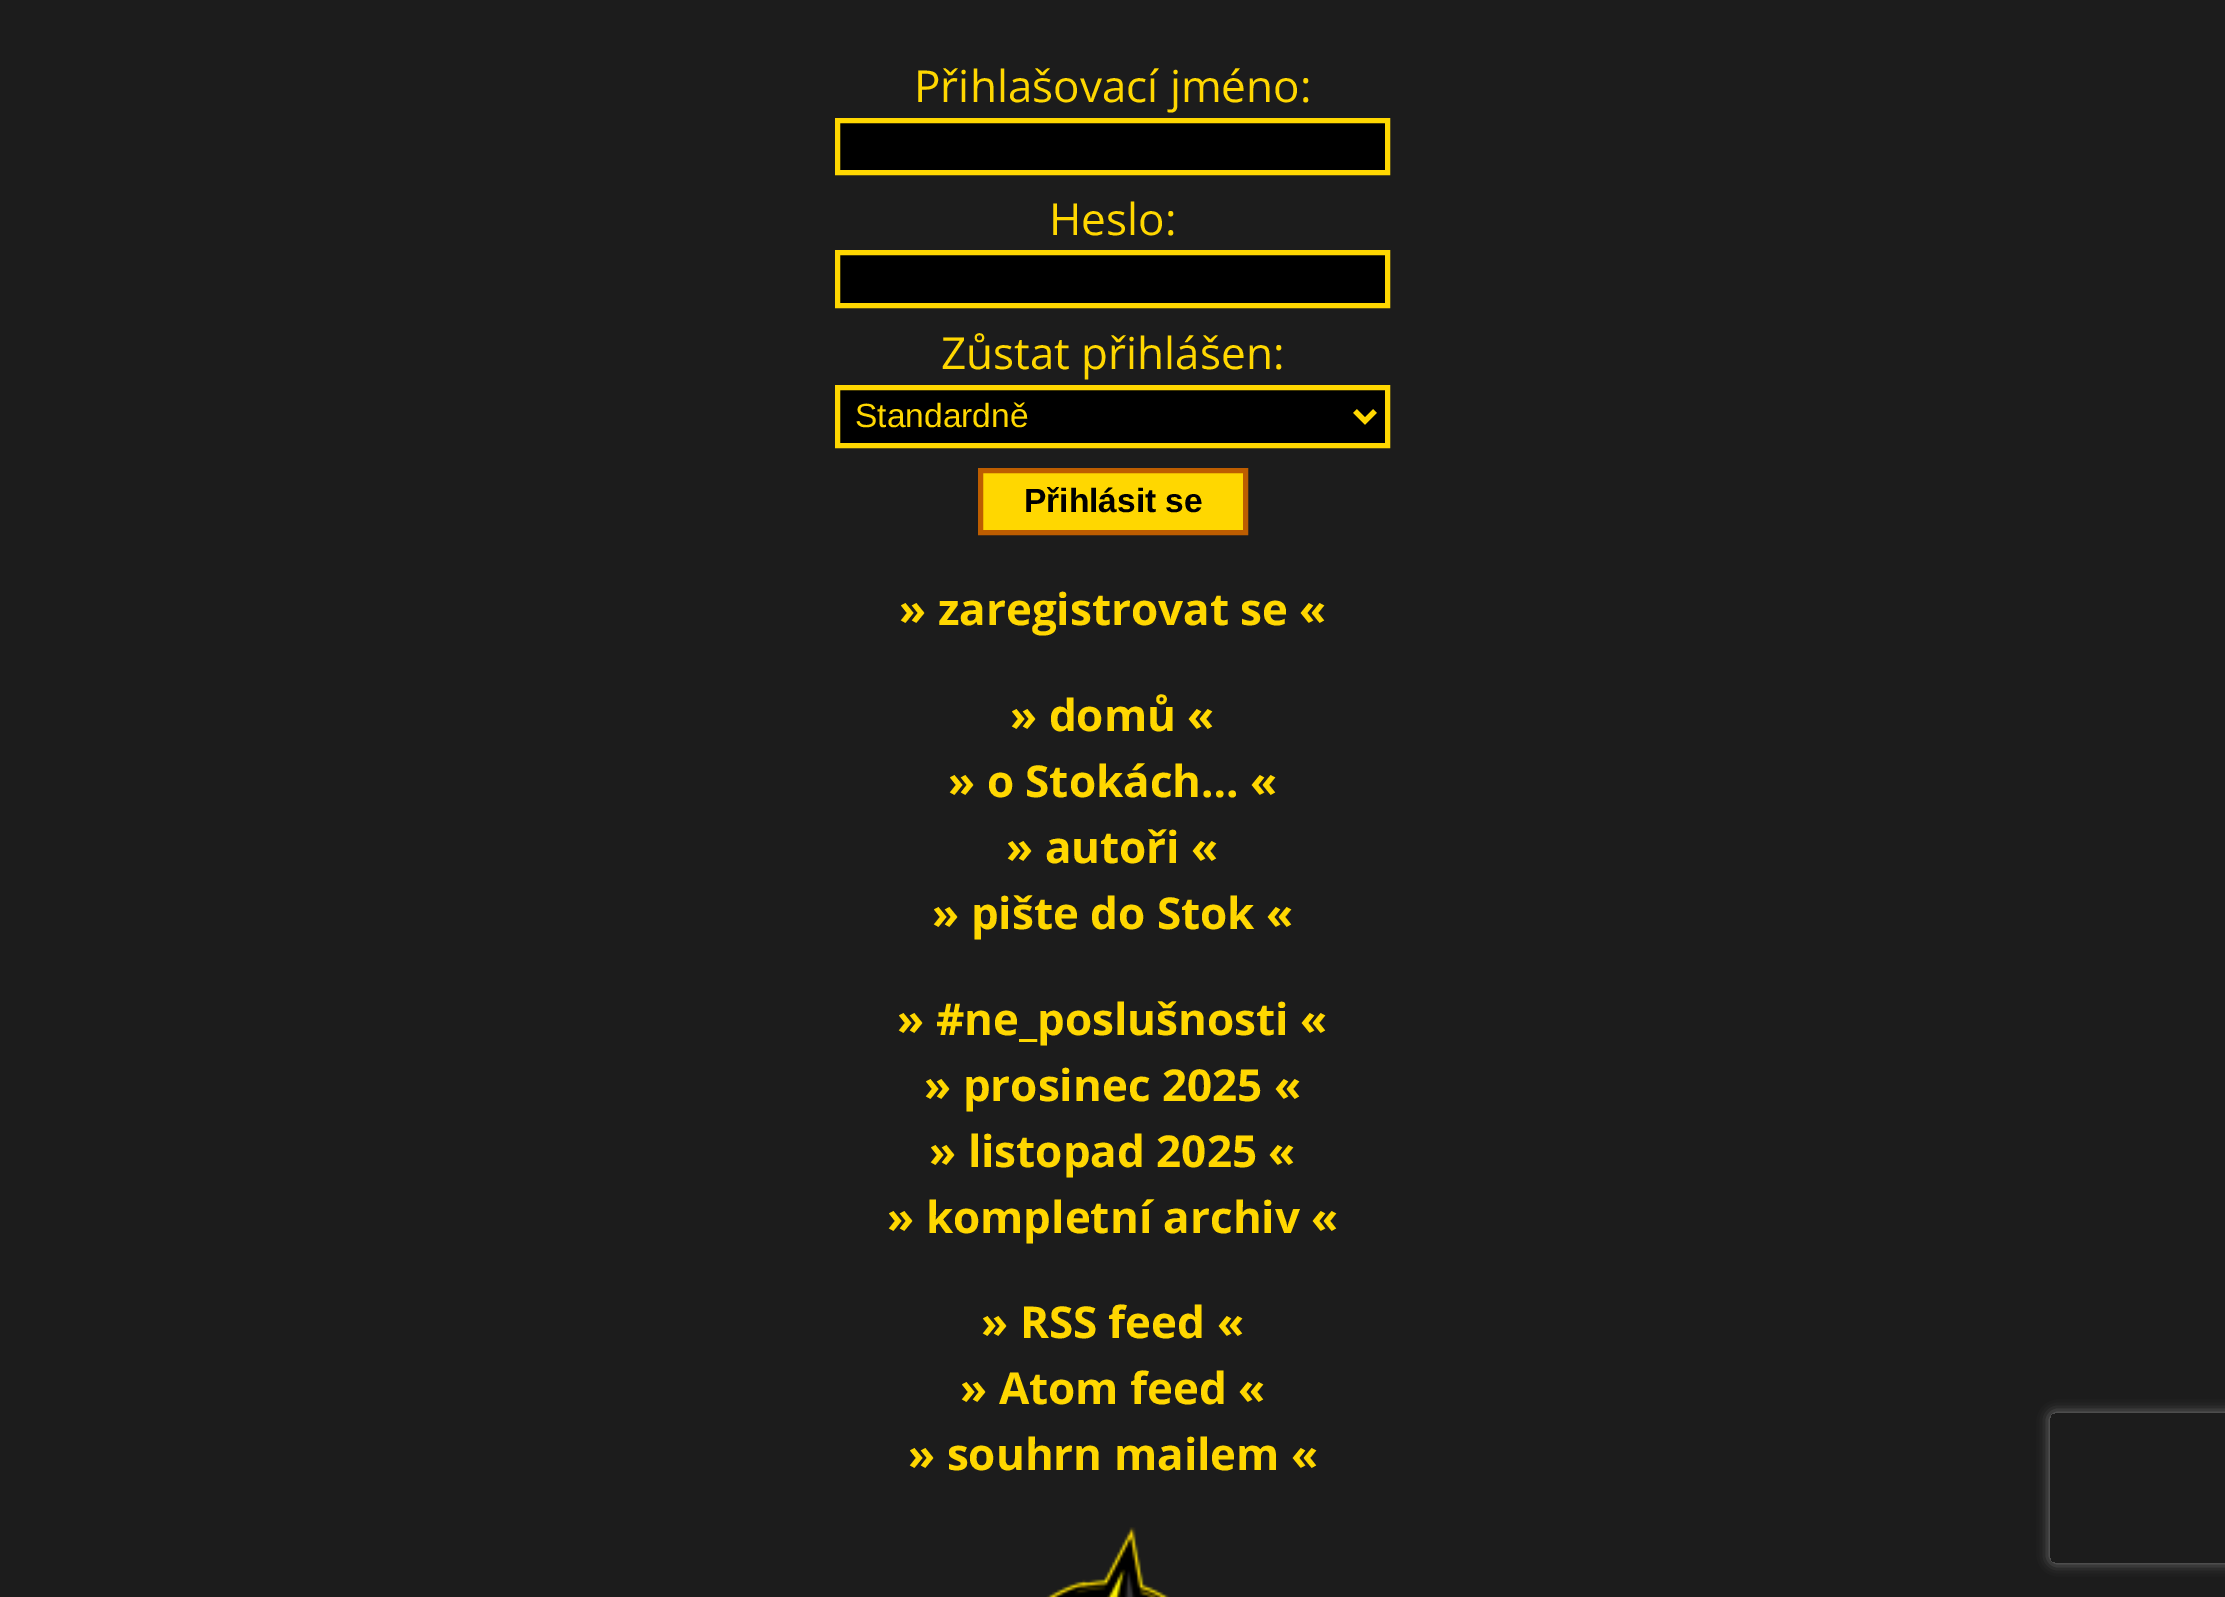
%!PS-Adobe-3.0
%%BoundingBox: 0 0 2225 1597
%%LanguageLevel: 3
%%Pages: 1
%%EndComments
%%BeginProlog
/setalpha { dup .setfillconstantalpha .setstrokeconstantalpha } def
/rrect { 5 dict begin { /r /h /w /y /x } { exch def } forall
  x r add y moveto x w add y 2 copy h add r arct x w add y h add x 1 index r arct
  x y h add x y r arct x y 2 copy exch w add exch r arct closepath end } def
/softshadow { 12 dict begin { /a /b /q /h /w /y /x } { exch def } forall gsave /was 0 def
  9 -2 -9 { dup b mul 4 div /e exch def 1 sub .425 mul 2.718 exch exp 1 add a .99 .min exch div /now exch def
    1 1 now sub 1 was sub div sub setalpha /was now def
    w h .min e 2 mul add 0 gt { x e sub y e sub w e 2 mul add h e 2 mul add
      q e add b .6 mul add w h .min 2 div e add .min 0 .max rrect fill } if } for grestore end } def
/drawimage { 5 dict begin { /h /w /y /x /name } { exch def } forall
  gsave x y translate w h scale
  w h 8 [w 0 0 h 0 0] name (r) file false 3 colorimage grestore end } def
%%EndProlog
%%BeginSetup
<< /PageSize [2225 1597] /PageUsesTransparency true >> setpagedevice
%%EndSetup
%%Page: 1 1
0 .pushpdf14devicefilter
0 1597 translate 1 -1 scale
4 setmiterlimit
0.11 setgray
0 0 2225 1597 rectfill
0 setgray
newpath 837.5 120.5 moveto 1387.5 120.5 lineto 1387.5 172.5 lineto 837.5 172.5 lineto closepath gsave fill grestore
1 0.843 0 setrgbcolor
5 setlinewidth
stroke
0 setgray
newpath 837.5 252.5 moveto 1387.5 252.5 lineto 1387.5 305.5 lineto 837.5 305.5 lineto closepath gsave fill grestore
1 0.843 0 setrgbcolor
stroke
0 setgray
newpath 837.5 387.5 moveto 1387.5 387.5 lineto 1387.5 445.5 lineto 837.5 445.5 lineto closepath gsave fill grestore
1 0.843 0 setrgbcolor
stroke
newpath 1355 411 moveto 1365 421 lineto 1375 411 lineto stroke
newpath 980.5 470.5 moveto 1245.5 470.5 lineto 1245.5 532.5 lineto 980.5 532.5 lineto closepath gsave fill grestore
0.741 0.365 0 setrgbcolor
stroke
gsave
newpath 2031 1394 moveto 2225 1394 lineto 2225 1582 lineto 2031 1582 lineto closepath 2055 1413 moveto 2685 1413 lineto 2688 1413 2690 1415 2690 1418 curveto 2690 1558 lineto 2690 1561 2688 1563 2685 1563 curveto 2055 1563 lineto 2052 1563 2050 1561 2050 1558 curveto 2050 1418 lineto 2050 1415 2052 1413 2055 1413 curveto closepath eoclip newpath
0.502 setgray
2050 1413 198 150 5 6 1 softshadow
grestore
(images/1.raw) 1046 1527 124 70 drawimage
/OpenSans-Regular [44 0 0 -44 0 0] selectfont
1 0.843 0 setrgbcolor
914 102 moveto (Přihlašovací jméno:) show
1049 235 moveto (Heslo:) show
941 369 moveto (Zůstat přihlášen:) show
/LiberationSans-Regular [33.5 0 0 -33.5 0 0] selectfont
855 427 moveto (Standardně) show
/LiberationSans-Bold [33.5 0 0 -33.5 0 0] selectfont
0 setgray
1024 512 moveto (Přihlásit se) show
/OpenSans-Bold [44 0 0 -44 0 0] selectfont
1 0.843 0 setrgbcolor
899 625 moveto (» zaregistrovat se «) show
1010 731 moveto (» domů «) show
948 797 moveto (» o Stokách… «) show
1006 863 moveto (» autoři «) show
932 929 moveto (» pište do Stok «) show
897 1035 moveto (» #ne_poslušnosti «) show
924 1101 moveto (» prosinec 2025 «) show
929 1167 moveto (» listopad 2025 «) show
887 1233 moveto (» kompletní archiv «) show
981 1338 moveto (» RSS feed «) show
960 1404 moveto (» Atom feed «) show
908 1470 moveto (» souhrn mailem «) show
.poppdf14devicefilter showpage
%%EOF
